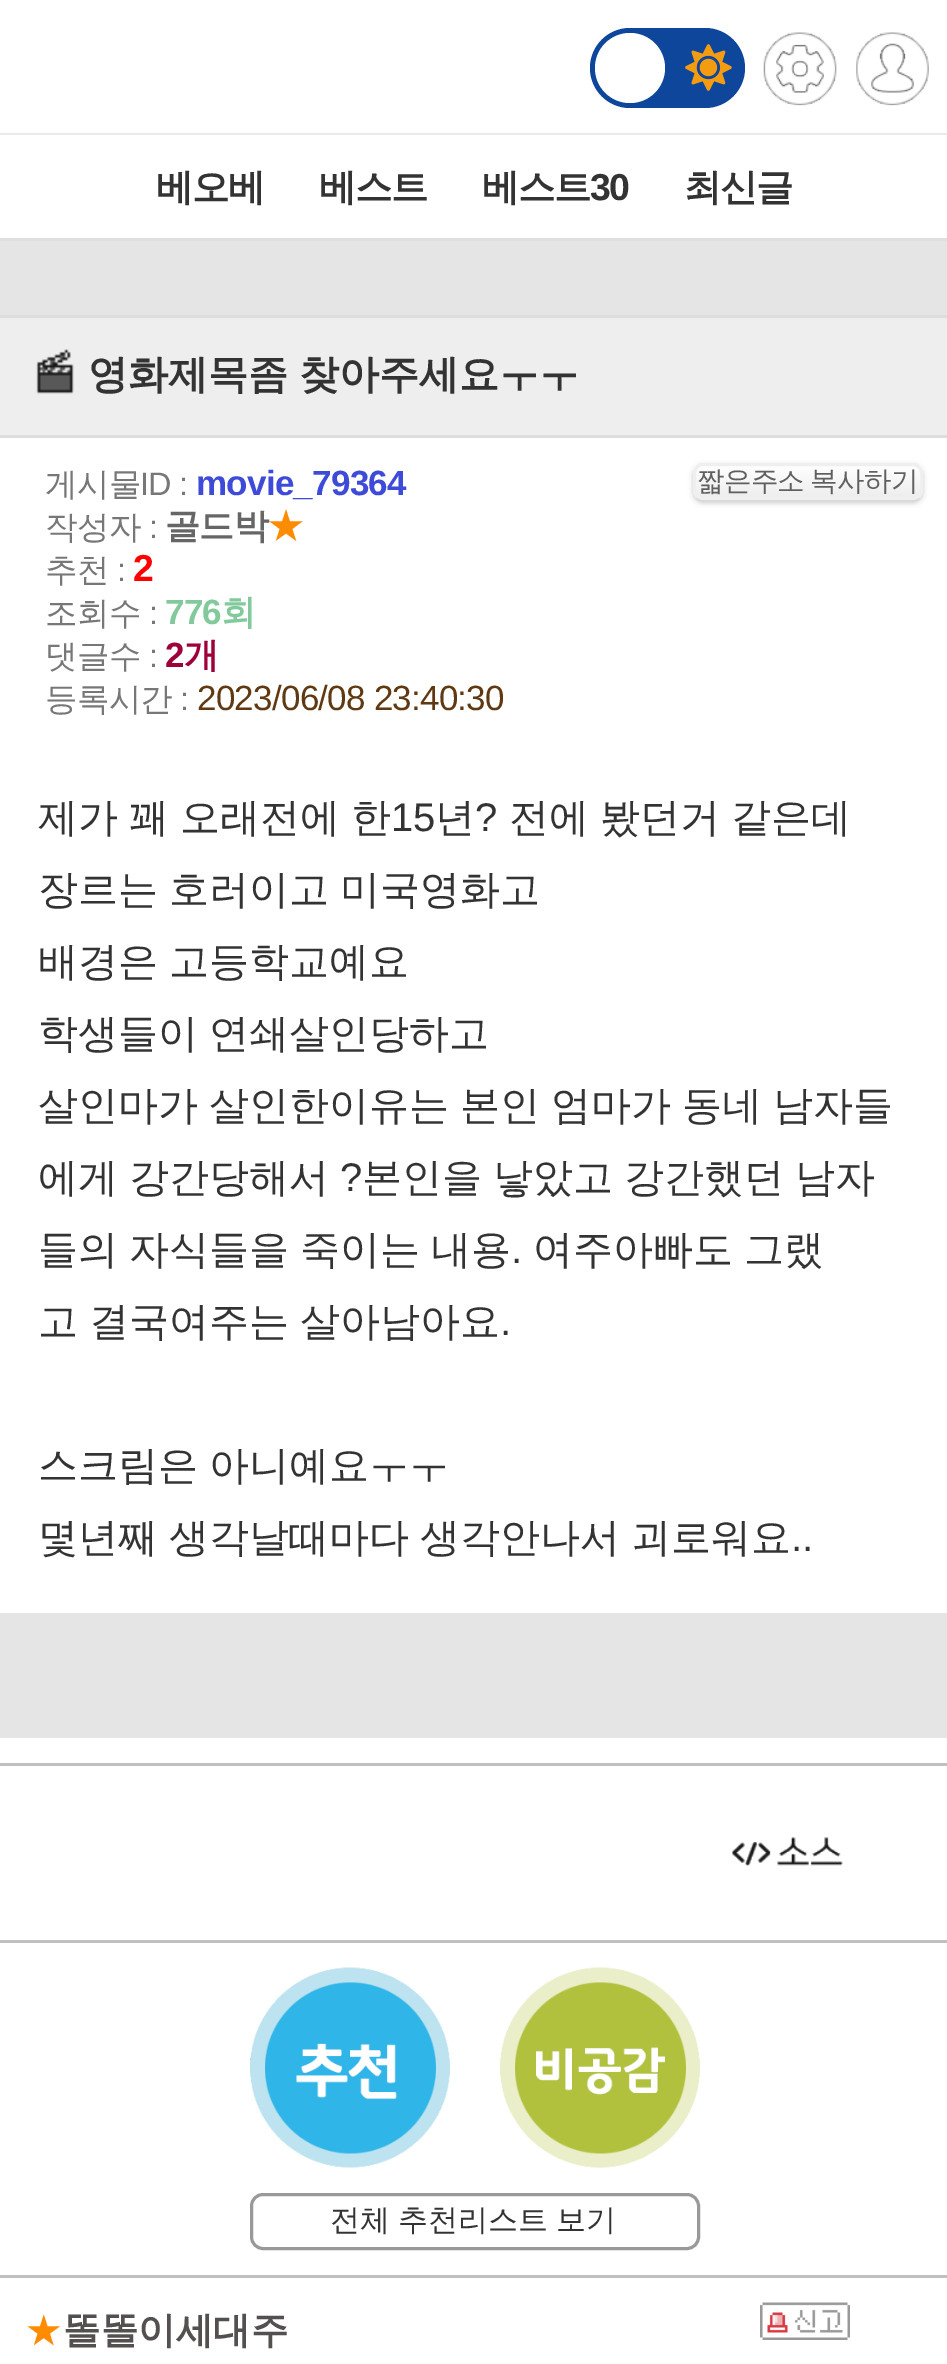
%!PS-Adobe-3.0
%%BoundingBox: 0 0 947 2364
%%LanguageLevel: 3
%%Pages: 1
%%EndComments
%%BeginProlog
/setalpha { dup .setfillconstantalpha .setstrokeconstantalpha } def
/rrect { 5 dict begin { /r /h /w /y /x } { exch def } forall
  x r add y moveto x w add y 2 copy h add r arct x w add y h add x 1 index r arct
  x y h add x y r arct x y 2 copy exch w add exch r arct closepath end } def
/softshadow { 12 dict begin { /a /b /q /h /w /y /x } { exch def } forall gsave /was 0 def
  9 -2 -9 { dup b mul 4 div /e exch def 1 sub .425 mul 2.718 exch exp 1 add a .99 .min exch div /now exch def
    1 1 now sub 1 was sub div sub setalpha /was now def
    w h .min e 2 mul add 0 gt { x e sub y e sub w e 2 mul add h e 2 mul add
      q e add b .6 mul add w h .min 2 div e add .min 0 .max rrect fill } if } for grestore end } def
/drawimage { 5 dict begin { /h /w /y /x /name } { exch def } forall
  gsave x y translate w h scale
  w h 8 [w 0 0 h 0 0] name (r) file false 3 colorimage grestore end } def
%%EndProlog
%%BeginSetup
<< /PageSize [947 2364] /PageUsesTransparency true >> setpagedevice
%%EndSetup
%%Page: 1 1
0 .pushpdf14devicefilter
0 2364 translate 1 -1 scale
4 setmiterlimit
1 setgray
0 0 947 2364 rectfill
0.918 setgray
0 133 947 2 rectfill
0.051 0.275 0.604 setrgbcolor
590 28 155 80 40 rrect fill
1 setgray
newpath 630 68 35 0 360 arc closepath fill
(images/1.raw) 685 44 47 47 drawimage
(images/2.raw) 763 32 74 74 drawimage
(images/3.raw) 856 32 73 74 drawimage
0.878 setgray
0 238 947 3 rectfill
0.898 setgray
0 241 947 74 rectfill
0.933 setgray
0 318 947 117 rectfill
0.867 setgray
0 315 947 3 rectfill
0 435 947 3 rectfill
(images/4.raw) 36 349 38 45 drawimage
0 setgray
693 465 230 38 10 2.5 0.2 softshadow
gsave
693 463 230 37 10 rrect clip newpath
gsave newpath 693 465 moveto 923 465 lineto 923 498 lineto 693 498 lineto closepath clip newpath
<< /ShadingType 2 /ColorSpace /DeviceRGB /Coords [695 465 695 498] /Extend [true true] /Function << /FunctionType 2 /Domain [0 1] /C0 [1 1 1] /C1 [0.929 0.929 0.929] /N 1 >> >> shfill grestore
grestore
0.937 setgray
3 setlinewidth
694.5 464.5 227 34 8.5 rrect stroke
0.898 setgray
0 1613 947 125 rectfill
0.753 setgray
0 1763 947 3 rectfill
(images/5.raw) 732 1837 111 29 drawimage
0 1940 947 3 rectfill
0 2275 947 3 rectfill
(images/6.raw) 250 1967 200 201 drawimage
(images/7.raw) 500 1967 200 201 drawimage
0.6 setgray
251.5 2194.5 447 54 11.5 rrect stroke
(images/8.raw) 760 2302 90 38 drawimage
/WenQuanYiZenHei-Bold [37.5 0 0 -37.5 0 0] selectfont
0.2 setgray
156 200 moveto -1.5 0 (베오베) ashow
319 200 moveto -1.5 0 (베스트) ashow
482 200 moveto -1.5 0 (베스트) ashow
/LiberationSans-Bold [37.5 0 0 -37.5 0 0] selectfont
590 200 moveto -1.5 0 (30) ashow
/WenQuanYiZenHei-Bold [37.5 0 0 -37.5 0 0] selectfont
684 200 moveto -1.5 0 (최신글) ashow
/WenQuanYiZenHei-Bold [40 0 0 -40 0 0] selectfont
88 388 moveto -1 0 32 (영화제목좀 찾아주세요ㅜㅜ) widthshow
/WenQuanYiZenHei-Medium [32.5 0 0 -32.5 0 0] selectfont
0.467 setgray
45 495 moveto -0.75 0 (게시물) ashow
/LiberationSans-Regular [32.5 0 0 -32.5 0 0] selectfont
140 495 moveto -0.75 0 (ID :) ashow
/LiberationSans-Bold [35 0 0 -35 0 0] selectfont
0.243 0.294 0.847 setrgbcolor
196 495 moveto -0.75 0 (movie_79364) ashow
/WenQuanYiZenHei-Medium [27.5 0 0 -27.5 0 0] selectfont
0.376 setgray
697 490 moveto -1 0 32 -0.75 0 (짧은주소 복사하기) awidthshow
/WenQuanYiZenHei-Medium [32.5 0 0 -32.5 0 0] selectfont
0.467 setgray
45 538 moveto -0.75 0 (작성자) ashow
/LiberationSans-Regular [32.5 0 0 -32.5 0 0] selectfont
149 538 moveto -0.75 0 (:) ashow
/WenQuanYiZenHei-Bold [35 0 0 -35 0 0] selectfont
0.4 setgray
165 538 moveto -0.75 0 (골드박) ashow
1 0.549 0 setrgbcolor
268 538 moveto -0.75 0 (★) ashow
/WenQuanYiZenHei-Medium [32.5 0 0 -32.5 0 0] selectfont
0.467 setgray
45 581 moveto -0.75 0 (추천) ashow
/LiberationSans-Regular [32.5 0 0 -32.5 0 0] selectfont
117 581 moveto -0.75 0 (:) ashow
/LiberationSans-Bold [37.5 0 0 -37.5 0 0] selectfont
1 0 0 setrgbcolor
133 581 moveto -0.75 0 (2) ashow
/WenQuanYiZenHei-Medium [32.5 0 0 -32.5 0 0] selectfont
0.467 setgray
45 624 moveto -0.75 0 (조회수) ashow
/LiberationSans-Regular [32.5 0 0 -32.5 0 0] selectfont
149 624 moveto -0.75 0 (:) ashow
/LiberationSans-Bold [35 0 0 -35 0 0] selectfont
0.51 0.792 0.612 setrgbcolor
165 624 moveto -0.75 0 (776) ashow
/WenQuanYiZenHei-Bold [35 0 0 -35 0 0] selectfont
221 624 moveto -0.75 0 (회) ashow
/WenQuanYiZenHei-Medium [32.5 0 0 -32.5 0 0] selectfont
0.467 setgray
45 667 moveto -0.75 0 (댓글수) ashow
/LiberationSans-Regular [32.5 0 0 -32.5 0 0] selectfont
149 667 moveto -0.75 0 (:) ashow
/LiberationSans-Bold [35 0 0 -35 0 0] selectfont
0.62 0 0.224 setrgbcolor
165 667 moveto -0.75 0 (2) ashow
/WenQuanYiZenHei-Bold [35 0 0 -35 0 0] selectfont
184 667 moveto -0.75 0 (개) ashow
/WenQuanYiZenHei-Medium [32.5 0 0 -32.5 0 0] selectfont
0.467 setgray
45 710 moveto -0.75 0 (등록시간) ashow
/LiberationSans-Regular [32.5 0 0 -32.5 0 0] selectfont
180 710 moveto -0.75 0 (:) ashow
/LiberationSans-Regular [35 0 0 -35 0 0] selectfont
0.376 0.224 0.075 setrgbcolor
197 710 moveto -0.75 0 (2023/06/08 23:40:30) ashow
/WenQuanYiZenHei-Medium [40 0 0 -40 0 0] selectfont
0.2 setgray
38 831 moveto (제가) show
129 831 moveto (꽤) show
180 831 moveto (오래전에) show
351 831 moveto (한) show
/LiberationSans-Regular [40 0 0 -40 0 0] selectfont
391 831 moveto (15) show
/WenQuanYiZenHei-Medium [40 0 0 -40 0 0] selectfont
435 831 moveto (년) show
/LiberationSans-Regular [40 0 0 -40 0 0] selectfont
475 831 moveto (?) show
/WenQuanYiZenHei-Medium [40 0 0 -40 0 0] selectfont
509 831 moveto (전에) show
600 831 moveto (봤던거) show
731 831 moveto (같은데) show
38 903 moveto (장르는) show
169 903 moveto (호러이고) show
340 903 moveto (미국영화고) show
38 975 moveto (배경은) show
169 975 moveto (고등학교예요) show
38 1047 moveto (학생들이) show
209 1047 moveto (연쇄살인당하고) show
38 1119 moveto (살인마가) show
209 1119 moveto (살인한이유는) show
460 1119 moveto (본인) show
551 1119 moveto (엄마가) show
682 1119 moveto (동네) show
773 1119 moveto (남자들) show
38 1191 moveto (에게) show
129 1191 moveto (강간당해서) show
/LiberationSans-Regular [40 0 0 -40 0 0] selectfont
340 1191 moveto (?) show
/WenQuanYiZenHei-Medium [40 0 0 -40 0 0] selectfont
362 1191 moveto (본인을) show
493 1191 moveto (낳았고) show
624 1191 moveto (강간했던) show
795 1191 moveto (남자) show
38 1263 moveto (들의) show
129 1263 moveto (자식들을) show
300 1263 moveto (죽이는) show
431 1263 moveto (내용) show
/LiberationSans-Regular [40 0 0 -40 0 0] selectfont
511 1263 moveto (.) show
/WenQuanYiZenHei-Medium [40 0 0 -40 0 0] selectfont
533 1263 moveto (여주아빠도) show
744 1263 moveto (그랬) show
38 1335 moveto (고) show
89 1335 moveto (결국여주는) show
300 1335 moveto (살아남아요) show
/LiberationSans-Regular [40 0 0 -40 0 0] selectfont
500 1335 moveto (.) show
/WenQuanYiZenHei-Medium [40 0 0 -40 0 0] selectfont
38 1479 moveto (스크림은) show
209 1479 moveto (아니예요ㅜㅜ) show
38 1551 moveto (몇년째) show
169 1551 moveto (생각날때마다) show
420 1551 moveto (생각안나서) show
631 1551 moveto (괴로워요) show
/LiberationSans-Regular [40 0 0 -40 0 0] selectfont
791 1551 moveto (..) show
/WenQuanYiZenHei-Medium [30 0 0 -30 0 0] selectfont
330 2230 moveto -1 0 32 (전체 추천리스트 보기) widthshow
/WenQuanYiZenHei-Medium [37.5 0 0 -37.5 0 0] selectfont
1 0.549 0 setrgbcolor
25 2343 moveto (★) show
/WenQuanYiZenHei-Bold [37.5 0 0 -37.5 0 0] selectfont
0.329 0.314 0.314 setrgbcolor
63 2343 moveto (똘똘이세대주) show
.poppdf14devicefilter showpage
%%EOF
